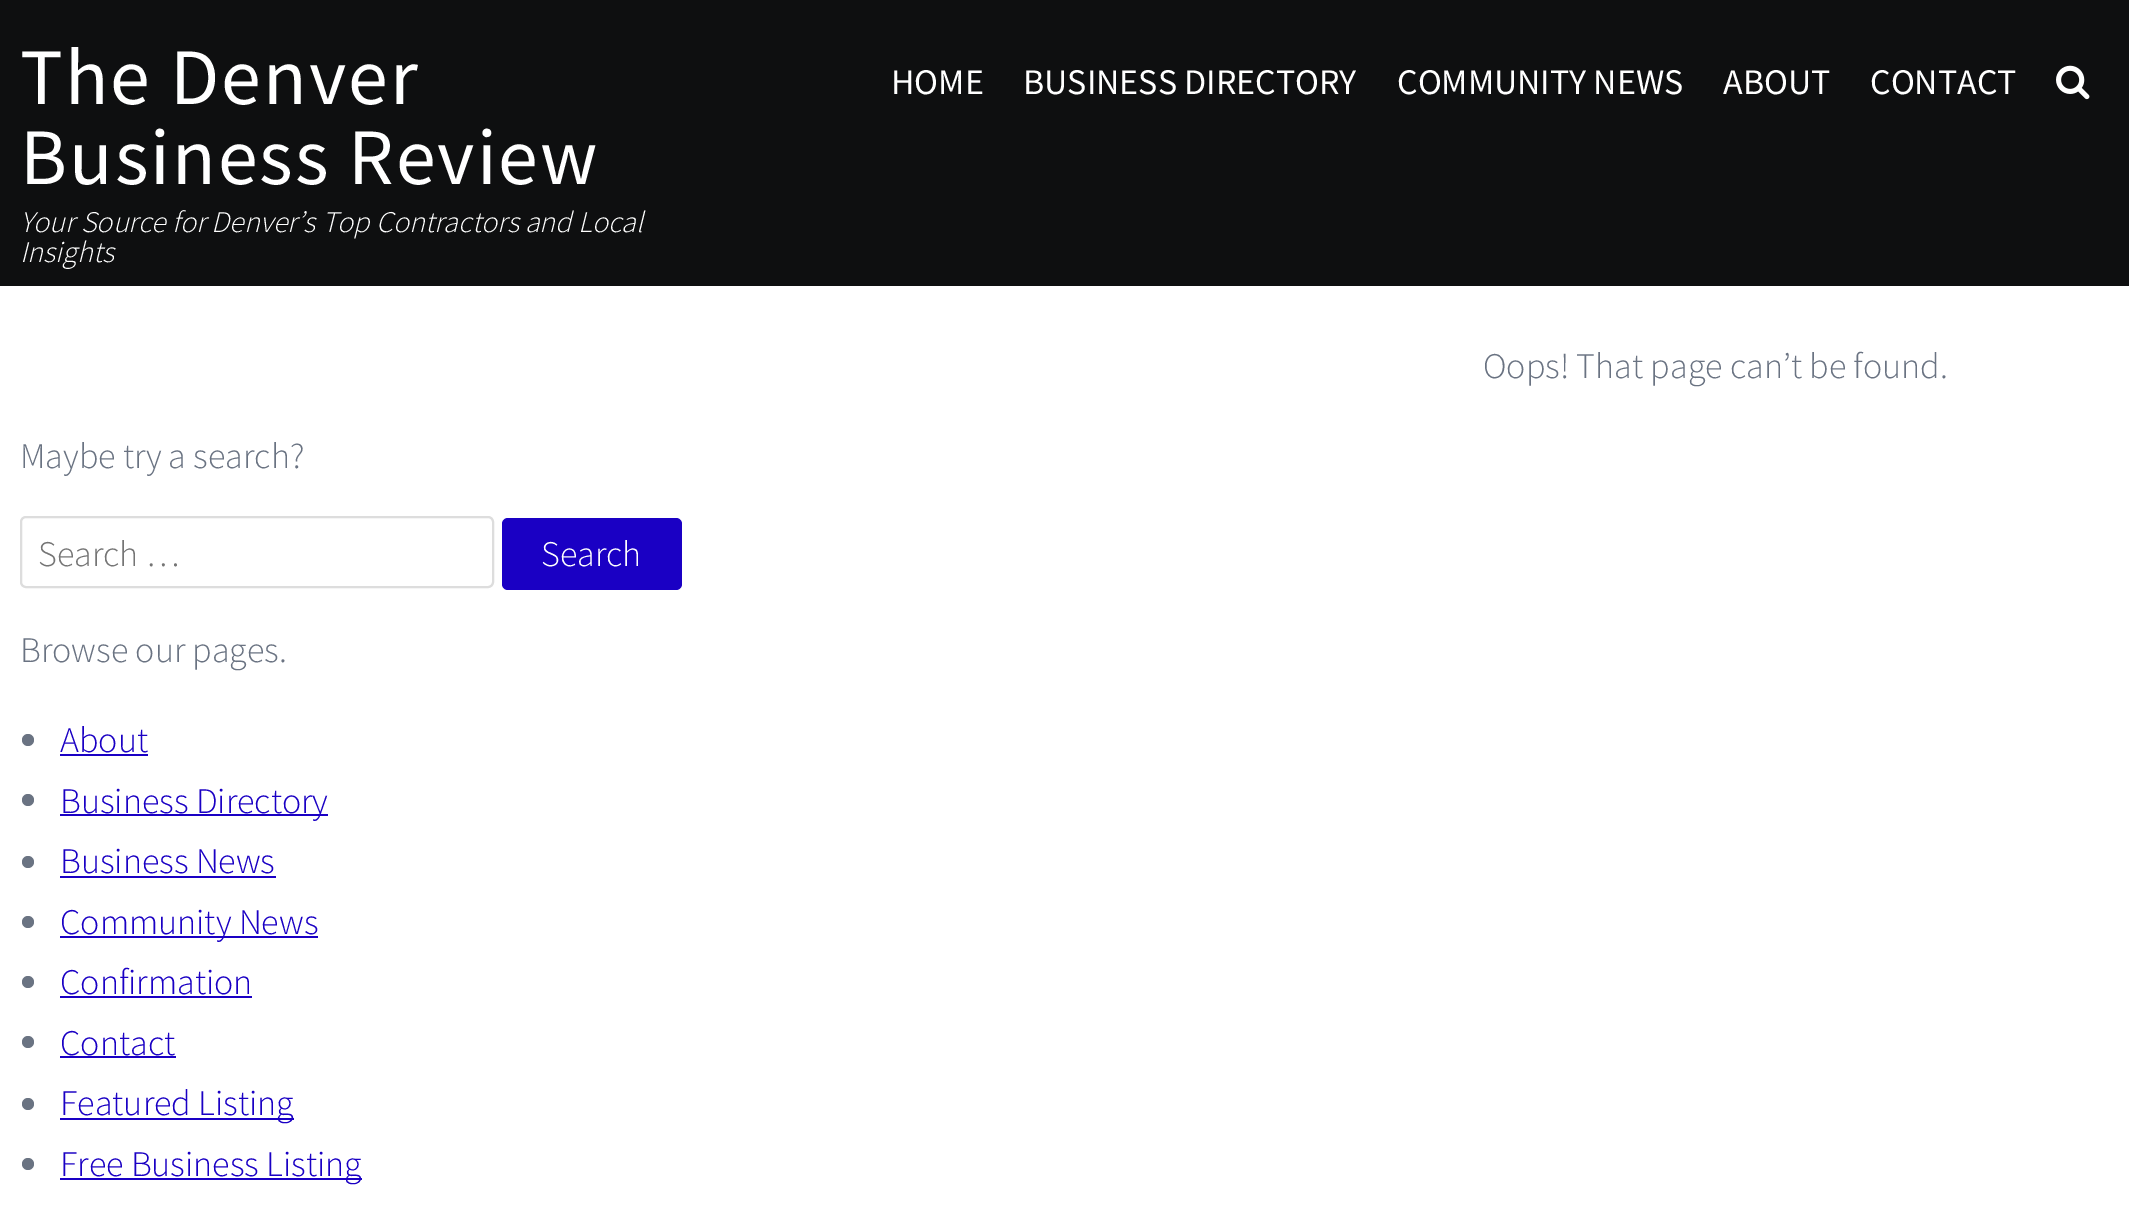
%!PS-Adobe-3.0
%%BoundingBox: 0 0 2129 1215
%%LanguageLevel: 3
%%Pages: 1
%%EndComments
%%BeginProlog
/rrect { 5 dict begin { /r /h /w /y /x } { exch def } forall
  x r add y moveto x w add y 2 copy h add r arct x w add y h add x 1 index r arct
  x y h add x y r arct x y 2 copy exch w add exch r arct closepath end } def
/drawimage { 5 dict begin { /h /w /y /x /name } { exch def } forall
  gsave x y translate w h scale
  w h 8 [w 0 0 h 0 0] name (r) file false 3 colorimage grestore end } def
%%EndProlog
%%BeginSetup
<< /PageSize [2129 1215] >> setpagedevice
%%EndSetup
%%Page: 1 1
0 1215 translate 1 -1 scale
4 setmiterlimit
1 setgray
0 0 2129 1215 rectfill
0.055 0.059 0.063 setrgbcolor
0 0 2129 286 rectfill
(images/1.raw) 2056 65 34 35 drawimage
0.867 setgray
2 setlinewidth
21 517 472 70 5 rrect stroke
0.102 0 0.769 setrgbcolor
502 518 180 72 6 rrect fill
0.416 0.451 0.51 setrgbcolor
newpath 28 740 6 0 360 arc closepath fill
0.102 0 0.769 setrgbcolor
60 754 88 2 rectfill
0.416 0.451 0.51 setrgbcolor
newpath 28 800 6 0 360 arc closepath fill
0.102 0 0.769 setrgbcolor
60 814 268 2 rectfill
0.416 0.451 0.51 setrgbcolor
newpath 28 862 6 0 360 arc closepath fill
0.102 0 0.769 setrgbcolor
60 876 216 2 rectfill
0.416 0.451 0.51 setrgbcolor
newpath 28 922 6 0 360 arc closepath fill
0.102 0 0.769 setrgbcolor
60 936 258 2 rectfill
0.416 0.451 0.51 setrgbcolor
newpath 28 982 6 0 360 arc closepath fill
0.102 0 0.769 setrgbcolor
60 996 192 2 rectfill
0.416 0.451 0.51 setrgbcolor
newpath 28 1042 6 0 360 arc closepath fill
0.102 0 0.769 setrgbcolor
60 1056 116 2 rectfill
0.416 0.451 0.51 setrgbcolor
newpath 28 1104 6 0 360 arc closepath fill
0.102 0 0.769 setrgbcolor
60 1118 234 2 rectfill
0.416 0.451 0.51 setrgbcolor
newpath 28 1164 6 0 360 arc closepath fill
0.102 0 0.769 setrgbcolor
60 1178 302 2 rectfill
/SourceSansPro-Regular [80 0 0 -80 0 0] selectfont
1 setgray
20 104 moveto 2 0 (The Denver) ashow
20 184 moveto 2 0 (Business Review) ashow
/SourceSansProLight-LightItalic [30 0 0 -30 0 0] selectfont
20 232 moveto (Your Source for Denver’s Top Contractors and Local) show
20 262 moveto (Insights) show
/SourceSansPro-Regular [36 0 0 -36 0 0] selectfont
891 94 moveto (HOME) show
1023 94 moveto (BUSINESS DIRECTORY) show
1397 94 moveto (COMMUNITY NEWS) show
1723 94 moveto (ABOUT) show
1870 94 moveto (CONTACT) show
/SourceSansProLight-Light [36 0 0 -36 0 0] selectfont
0.416 0.451 0.51 setrgbcolor
1483 378 moveto (Oops! That page can’t be found.) show
20 468 moveto (Maybe try a search?) show
0.459 setgray
38 566 moveto (Search …) show
1 setgray
541 566 moveto (Search) show
0.416 0.451 0.51 setrgbcolor
20 662 moveto (Browse our pages.) show
0.102 0 0.769 setrgbcolor
60 752 moveto (About) show
60 813 moveto (Business Directory) show
60 873 moveto (Business News) show
60 934 moveto (Community News) show
60 994 moveto (Confirmation) show
60 1055 moveto (Contact) show
60 1115 moveto (Featured Listing) show
60 1176 moveto (Free Business Listing) show
showpage
%%EOF
